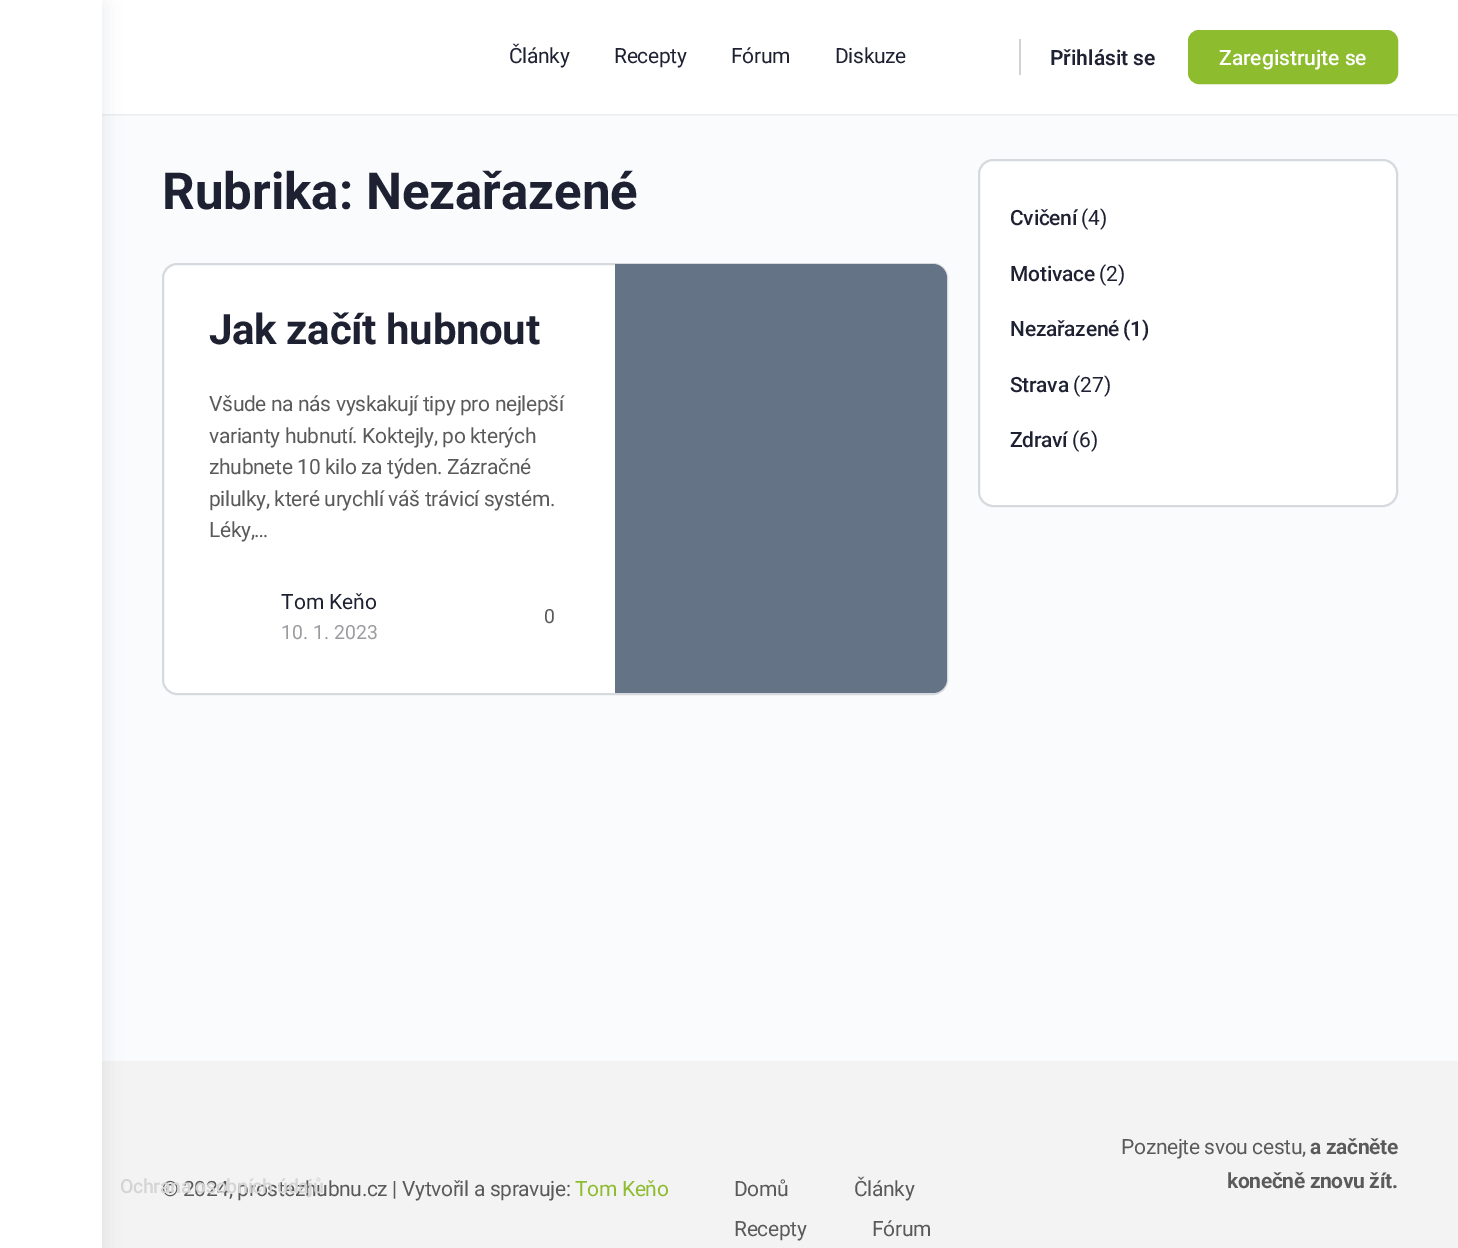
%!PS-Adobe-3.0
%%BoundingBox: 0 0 1458 1248
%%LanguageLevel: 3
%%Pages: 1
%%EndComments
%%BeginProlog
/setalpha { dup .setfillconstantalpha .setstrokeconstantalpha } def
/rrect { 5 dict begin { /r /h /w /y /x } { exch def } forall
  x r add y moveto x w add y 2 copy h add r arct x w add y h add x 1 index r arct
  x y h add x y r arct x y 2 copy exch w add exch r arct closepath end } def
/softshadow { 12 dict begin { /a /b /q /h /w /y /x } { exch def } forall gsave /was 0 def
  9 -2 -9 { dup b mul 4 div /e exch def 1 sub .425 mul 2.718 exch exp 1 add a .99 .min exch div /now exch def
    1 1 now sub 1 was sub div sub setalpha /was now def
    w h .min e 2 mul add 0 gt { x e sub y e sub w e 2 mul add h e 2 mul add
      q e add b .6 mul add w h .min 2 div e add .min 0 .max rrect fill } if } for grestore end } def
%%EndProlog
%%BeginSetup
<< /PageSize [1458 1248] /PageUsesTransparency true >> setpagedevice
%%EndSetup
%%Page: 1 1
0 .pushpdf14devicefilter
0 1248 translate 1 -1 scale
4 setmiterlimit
0.98 0.984 0.992 setrgbcolor
0 0 1458 1248 rectfill
0.255 0.278 0.424 setrgbcolor
102 0 1356 114 0 1 0.15 softshadow
0.05 setalpha
0.545 0.553 0.616 setrgbcolor
102 114 1356 2 rectfill
1 setalpha
1 setgray
102 0 1356 114 rectfill
0.824 0.827 0.839 setrgbcolor
1019 39 2 36 rectfill
0.553 0.737 0.184 setrgbcolor
1189 31 208 52 10 rrect gsave fill grestore
2 setlinewidth
stroke
1 setgray
163 264 784 430 14 rrect gsave fill grestore
0.839 0.851 0.867 setrgbcolor
stroke
0.392 0.451 0.522 setrgbcolor
newpath 615 264 moveto 933 264 lineto 940.5 264 947 270.5 947 278 curveto 947 679 lineto 947 686.5 940.5 693 933 693 curveto 615 693 lineto closepath fill
1 setgray
979 160 418 346 14 rrect gsave fill grestore
0.839 0.851 0.867 setrgbcolor
stroke
0.953 setgray
102 1061 1356 187 rectfill
0.071 0.169 0.275 setrgbcolor
0 5 102 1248 0 10 0.1 softshadow
1 setgray
0 0 102 1248 rectfill
/Roboto-Regular [21 0 0 -21 0 0] selectfont
0.118 0.129 0.196 setrgbcolor
509 63 moveto -0.35 0 (Články) ashow
614 63 moveto -0.35 0 (Recepty) ashow
731 63 moveto -0.35 0 (Fórum) ashow
835 63 moveto -0.35 0 (Diskuze) ashow
/Roboto-SemiBold [21 0 0 -21 0 0] selectfont
1050 65 moveto (Přihlásit se) show
/Roboto-Medium [21 0 0 -21 0 0] selectfont
1 setgray
1219 65 moveto (Zaregistrujte se) show
/Roboto-Bold [51 0 0 -51 0 0] selectfont
0.118 0.129 0.196 setrgbcolor
162 209 moveto (Rubrika: Nezařazené) show
/Roboto-Bold [42 0 0 -42 0 0] selectfont
209 344 moveto -0.35 0 (Jak začít hubnout) ashow
/Roboto-Regular [21 0 0 -21 0 0] selectfont
0.353 setgray
209 411 moveto -0.35 0 (Všude na nás vyskakují tipy pro nejlepší) ashow
209 443 moveto -0.35 0 (varianty hubnutí. Koktejly, po kterých) ashow
209 474 moveto -0.35 0 (zhubnete 10 kilo za týden. Zázračné) ashow
209 506 moveto -0.35 0 (pilulky, které urychlí váš trávicí systém.) ashow
209 537 moveto -0.35 0 (Léky,…) ashow
0.118 0.129 0.196 setrgbcolor
281 609 moveto (Tom Keňo) show
/Roboto-Regular [19.5 0 0 -19.5 0 0] selectfont
0.608 0.612 0.624 setrgbcolor
281 639 moveto (10. 1. 2023) show
0.353 setgray
544 623 moveto -0.25 0 (0) ashow
/Roboto-Medium [21 0 0 -21 0 0] selectfont
0.118 0.129 0.196 setrgbcolor
1010 225 moveto -0.25 0 (Cvičení) ashow
/Roboto-Regular [21 0 0 -21 0 0] selectfont
1081 225 moveto (\(4\)) show
/Roboto-Medium [21 0 0 -21 0 0] selectfont
1010 281 moveto -0.25 0 (Motivace) ashow
/Roboto-Regular [21 0 0 -21 0 0] selectfont
1099 281 moveto (\(2\)) show
/Roboto-Medium [21 0 0 -21 0 0] selectfont
1010 336 moveto -0.25 0 (Nezařazené) ashow
/Roboto-SemiBold [21 0 0 -21 0 0] selectfont
1123 336 moveto (\(1\)) show
/Roboto-Medium [21 0 0 -21 0 0] selectfont
1010 392 moveto -0.25 0 (Strava) ashow
/Roboto-Regular [21 0 0 -21 0 0] selectfont
1073 392 moveto (\(27\)) show
/Roboto-Medium [21 0 0 -21 0 0] selectfont
1010 447 moveto -0.25 0 (Zdraví) ashow
/Roboto-Regular [21 0 0 -21 0 0] selectfont
1072 447 moveto (\(6\)) show
0.353 setgray
1121 1154 moveto -0.35 0 (Poznejte svou cestu,) ashow
/Roboto-Bold [21 0 0 -21 0 0] selectfont
1310 1154 moveto -0.35 0 (a začněte) ashow
1227 1188 moveto -0.35 0 (konečně znovu žít.) ashow
/Roboto-Regular [21 0 0 -21 0 0] selectfont
162 1196 moveto -0.35 0 (© 2024, prostezhubnu.cz | Vytvořil a spravuje:) ashow
0.553 0.737 0.184 setrgbcolor
575 1196 moveto -0.35 0 (Tom Keňo) ashow
0.353 setgray
734 1196 moveto -0.35 0 (Domů) ashow
854 1196 moveto -0.35 0 (Články) ashow
734 1236 moveto -0.35 0 (Recepty) ashow
872 1236 moveto -0.35 0 (Fórum) ashow
/Roboto-Medium [19.5 0 0 -19.5 0 0] selectfont
0.831 setgray
120 1193 moveto -0.35 0 (Ochrana osobních údajů) ashow
.poppdf14devicefilter showpage
%%EOF
